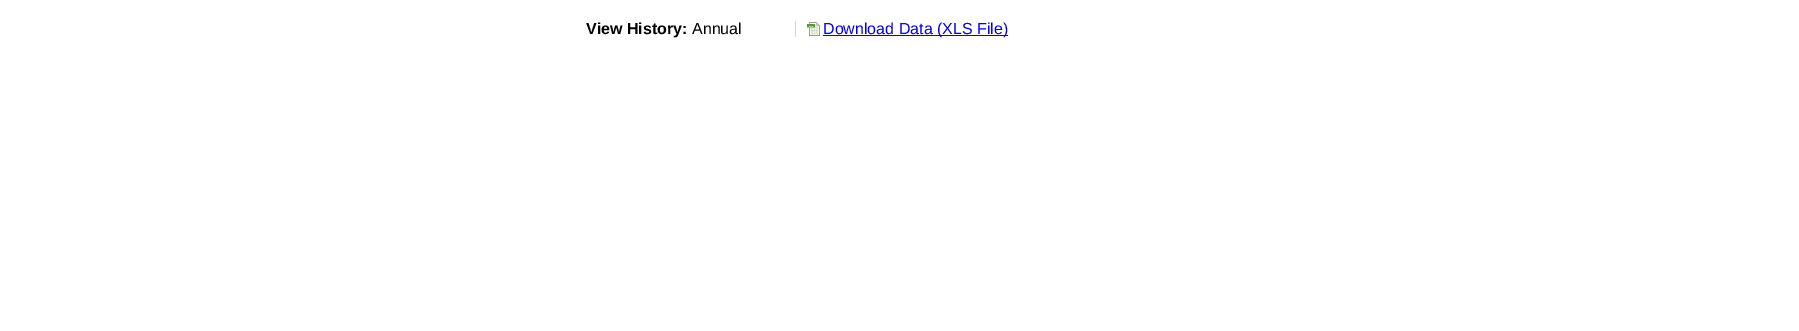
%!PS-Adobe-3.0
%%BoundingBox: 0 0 1799 331
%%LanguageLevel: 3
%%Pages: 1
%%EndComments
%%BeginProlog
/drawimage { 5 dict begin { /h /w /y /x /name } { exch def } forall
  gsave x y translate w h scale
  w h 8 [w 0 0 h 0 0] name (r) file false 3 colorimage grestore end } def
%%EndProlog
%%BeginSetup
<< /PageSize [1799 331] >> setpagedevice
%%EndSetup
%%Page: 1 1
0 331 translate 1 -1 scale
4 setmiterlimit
1 setgray
0 0 1799 331 rectfill
0.843 setgray
795 21 1 16 rectfill
(images/1.raw) 807 22 13 14 drawimage
0 0 0.933 setrgbcolor
823 35 185 1 rectfill
/LiberationSans-Bold [16 0 0 -16 0 0] selectfont
0 setgray
586 34 moveto (View History:) show
/LiberationSans-Regular [16 0 0 -16 0 0] selectfont
692 34 moveto (Annual) show
0 0 0.933 setrgbcolor
823 34 moveto (Download Data \(XLS File\)) show
showpage
%%EOF
